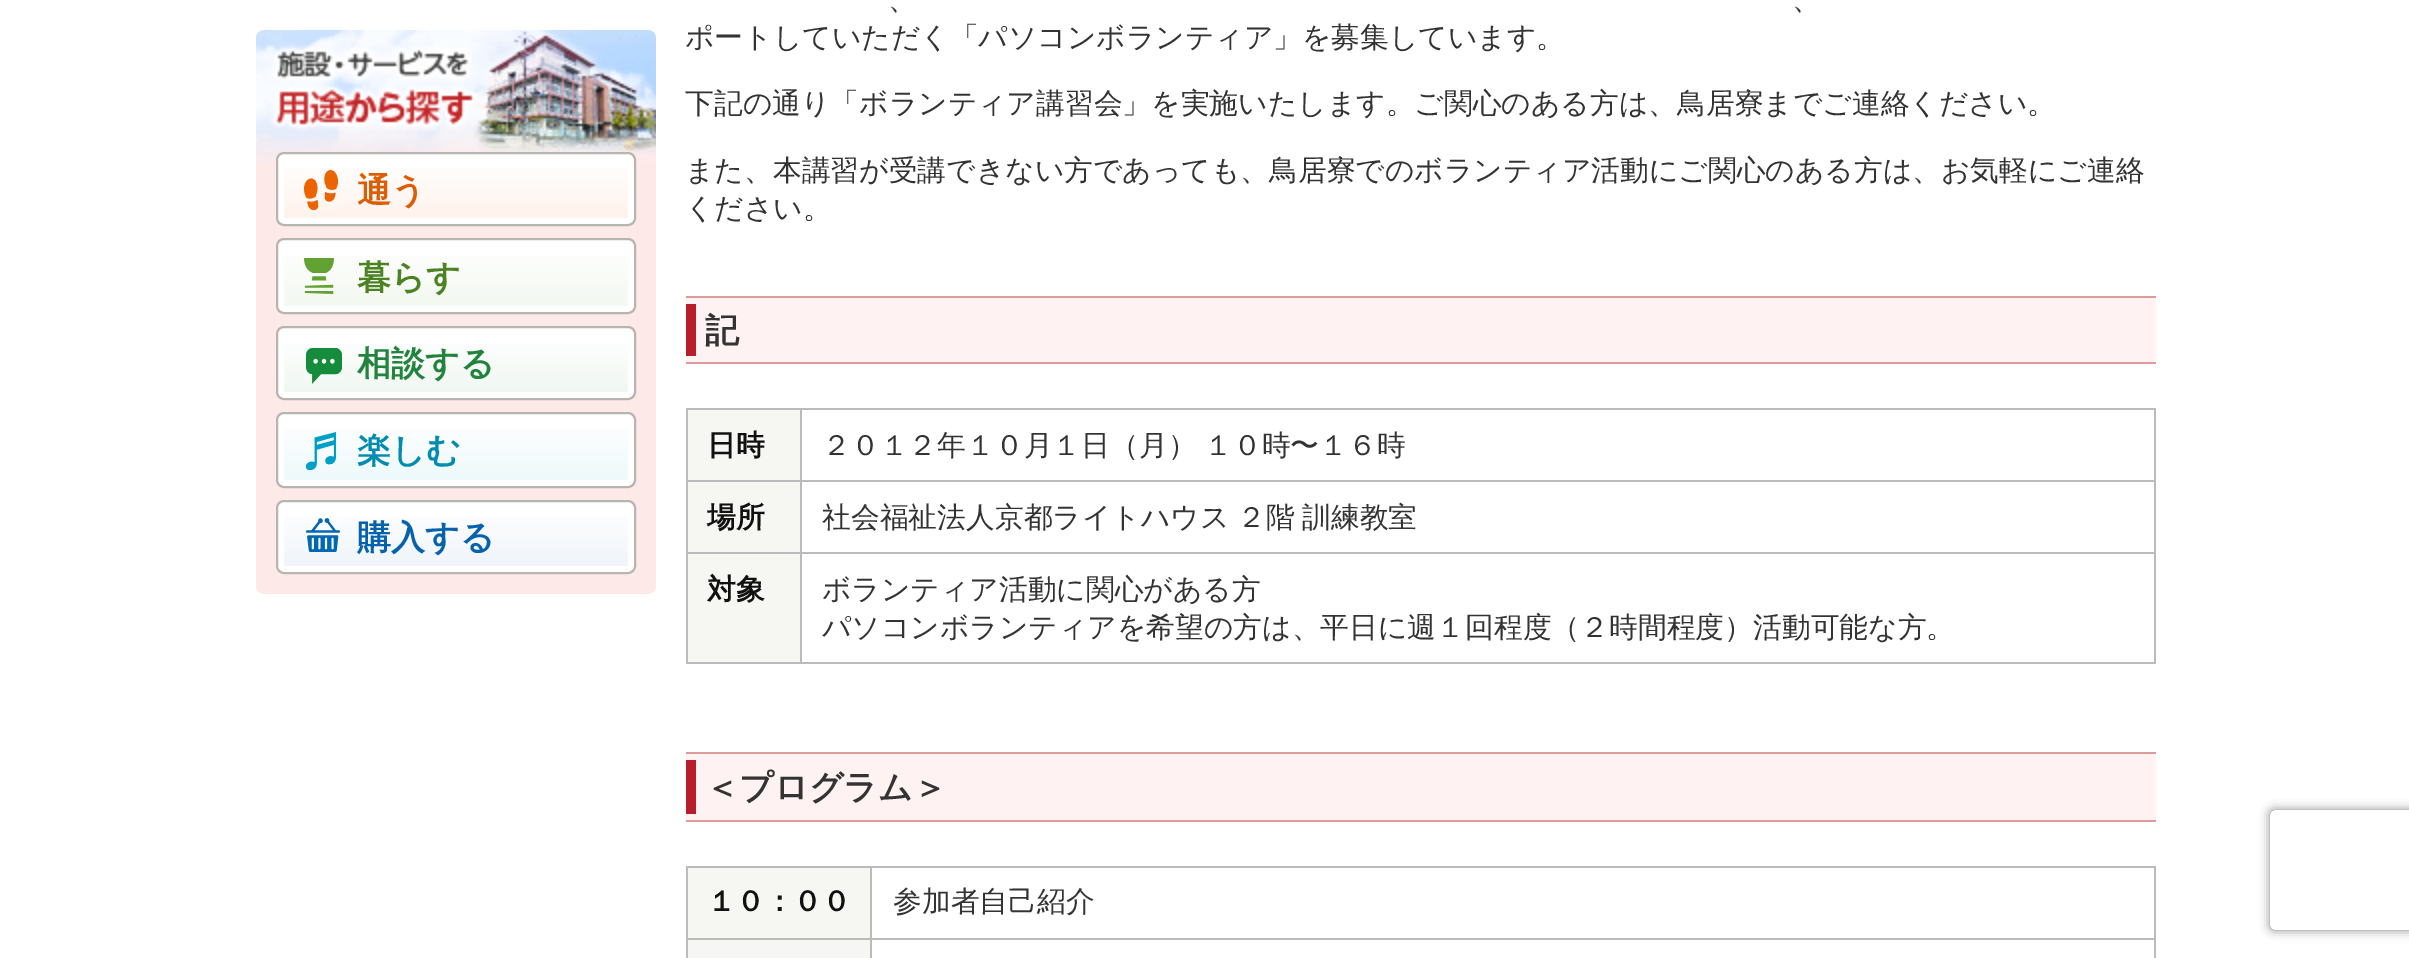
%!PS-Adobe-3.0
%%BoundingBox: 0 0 2409 958
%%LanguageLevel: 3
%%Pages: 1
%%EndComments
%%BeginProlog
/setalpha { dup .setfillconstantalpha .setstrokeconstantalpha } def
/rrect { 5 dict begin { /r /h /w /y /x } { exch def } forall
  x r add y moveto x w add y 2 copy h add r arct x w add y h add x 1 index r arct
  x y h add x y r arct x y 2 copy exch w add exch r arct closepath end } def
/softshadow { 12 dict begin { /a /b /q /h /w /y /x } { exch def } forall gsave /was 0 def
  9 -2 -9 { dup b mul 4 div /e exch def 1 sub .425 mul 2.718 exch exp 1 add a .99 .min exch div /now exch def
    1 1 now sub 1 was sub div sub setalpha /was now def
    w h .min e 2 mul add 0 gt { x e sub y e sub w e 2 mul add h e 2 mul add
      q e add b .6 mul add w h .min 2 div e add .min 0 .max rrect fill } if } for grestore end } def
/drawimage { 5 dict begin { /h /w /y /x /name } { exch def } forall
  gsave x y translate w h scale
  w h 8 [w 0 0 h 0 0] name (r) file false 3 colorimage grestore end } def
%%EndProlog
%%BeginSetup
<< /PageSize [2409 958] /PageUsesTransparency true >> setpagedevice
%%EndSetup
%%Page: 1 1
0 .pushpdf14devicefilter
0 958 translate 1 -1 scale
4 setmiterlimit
1 setgray
0 0 2409 958 rectfill
0.996 0.914 0.914 setrgbcolor
256 30 400 564 8 rrect fill
(images/1.raw) 256 30 400 133 drawimage
1 setgray
277 153 358 72 7 rrect gsave fill grestore
0.714 0.714 0.69 setrgbcolor
2 setlinewidth
stroke
gsave newpath 284 168 moveto 628 168 lineto 628 218 lineto 284 218 lineto closepath clip newpath
<< /ShadingType 2 /ColorSpace /DeviceRGB /Coords [456 160 456 218] /Extend [true true] /Function << /FunctionType 2 /Domain [0 1] /C0 [1 1 1] /C1 [0.996 0.953 0.925] /N 1 >> >> shfill grestore
(images/2.raw) 304 170 34 40 drawimage
1 setgray
277 239 358 74 7 rrect gsave fill grestore
0.714 0.714 0.69 setrgbcolor
stroke
gsave newpath 284 256 moveto 628 256 lineto 628 306 lineto 284 306 lineto closepath clip newpath
<< /ShadingType 2 /ColorSpace /DeviceRGB /Coords [456 246 456 306] /Extend [true true] /Function << /FunctionType 2 /Domain [0 1] /C0 [1 1 1] /C1 [0.953 0.973 0.941] /N 1 >> >> shfill grestore
(images/3.raw) 304 258 30 36 drawimage
1 setgray
277 327 358 72 7 rrect gsave fill grestore
0.714 0.714 0.69 setrgbcolor
stroke
gsave newpath 284 344 moveto 628 344 lineto 628 392 lineto 284 392 lineto closepath clip newpath
<< /ShadingType 2 /ColorSpace /DeviceRGB /Coords [456 334 456 392] /Extend [true true] /Function << /FunctionType 2 /Domain [0 1] /C0 [1 1 1] /C1 [0.941 0.969 0.949] /N 1 >> >> shfill grestore
(images/4.raw) 306 348 36 36 drawimage
1 setgray
277 413 358 74 7 rrect gsave fill grestore
0.714 0.714 0.69 setrgbcolor
stroke
gsave newpath 284 429 moveto 628 429 lineto 628 480 lineto 284 480 lineto closepath clip newpath
<< /ShadingType 2 /ColorSpace /DeviceRGB /Coords [456 420 456 480] /Extend [true true] /Function << /FunctionType 2 /Domain [0 1] /C0 [1 1 1] /C1 [0.933 0.976 0.984] /N 1 >> >> shfill grestore
(images/5.raw) 306 432 30 38 drawimage
1 setgray
277 501 358 72 7 rrect gsave fill grestore
0.714 0.714 0.69 setrgbcolor
stroke
gsave newpath 284 517 moveto 628 517 lineto 628 566 lineto 284 566 lineto closepath clip newpath
<< /ShadingType 2 /ColorSpace /DeviceRGB /Coords [456 508 456 566] /Extend [true true] /Function << /FunctionType 2 /Domain [0 1] /C0 [1 1 1] /C1 [0.937 0.961 0.98] /N 1 >> >> shfill grestore
(images/6.raw) 306 518 34 34 drawimage
0.996 0.949 0.949 setrgbcolor
686 298 1470 64 rectfill
0.882 0.604 0.608 setrgbcolor
686 296 1470 2 rectfill
686 362 1470 2 rectfill
0.722 0.114 0.169 setrgbcolor
686 304 10 52 rectfill
0.733 setgray
686 408 1470 2 rectfill
2154 408 2 256 rectfill
686 662 1470 2 rectfill
686 408 2 256 rectfill
0.965 0.965 0.949 setrgbcolor
688 410 112 70 rectfill
0.733 setgray
800 480 1356 2 rectfill
800 552 1356 2 rectfill
800 552 2 112 rectfill
686 552 116 2 rectfill
800 480 2 74 rectfill
686 480 116 2 rectfill
800 408 2 74 rectfill
0.965 0.965 0.949 setrgbcolor
688 482 112 70 rectfill
688 554 112 108 rectfill
0.996 0.949 0.949 setrgbcolor
686 754 1470 66 rectfill
0.882 0.604 0.608 setrgbcolor
686 752 1470 2 rectfill
686 820 1470 2 rectfill
0.722 0.114 0.169 setrgbcolor
686 760 10 54 rectfill
0.733 setgray
686 866 1470 2 rectfill
2154 866 2 92 rectfill
686 866 2 92 rectfill
0.965 0.965 0.949 setrgbcolor
688 868 182 70 rectfill
0.733 setgray
870 938 1286 2 rectfill
870 938 2 20 rectfill
686 938 186 2 rectfill
870 866 2 74 rectfill
0.965 0.965 0.949 setrgbcolor
688 940 182 18 rectfill
gsave
newpath 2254 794 moveto 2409 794 lineto 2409 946 lineto 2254 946 lineto closepath 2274 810 moveto 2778 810 lineto 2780 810 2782 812 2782 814 curveto 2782 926 lineto 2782 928 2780 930 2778 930 curveto 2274 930 lineto 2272 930 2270 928 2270 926 curveto 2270 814 lineto 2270 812 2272 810 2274 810 curveto closepath eoclip newpath
0.502 setgray
2270 810 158 120 4 5 1 softshadow
grestore
/WenQuanYiZenHei-Bold [34 0 0 -34 0 0] selectfont
0.863 0.365 0.012 setrgbcolor
357 202 moveto (通う) show
0.298 0.514 0.133 setrgbcolor
357 289 moveto (暮らす) show
0.129 0.514 0.235 setrgbcolor
357 375 moveto (相談する) show
0 0.545 0.69 setrgbcolor
357 462 moveto (楽しむ) show
0.024 0.384 0.678 setrgbcolor
357 549 moveto (購入する) show
/WenQuanYiZenHei-Medium [28.8 0 0 -28.8 0 0] selectfont
0.2 setgray
888 9 moveto (、) show
1792 9 moveto (、) show
685 47 moveto (ポートしていただく「パソコンボランティア」を募集しています。) show
685 113 moveto (下記の通り「ボランティア講習会」を実施いたします。ご関心のある方は、鳥居寮までご連絡ください。) show
685 180 moveto (また、本講習が受講できない方であっても、鳥居寮でのボランティア活動にご関心のある方は、お気軽にご連絡) show
685 218 moveto (ください。) show
/WenQuanYiZenHei-Bold [34 0 0 -34 0 0] selectfont
705 342 moveto (記) show
/WenQuanYiZenHei-Bold [28.8 0 0 -28.8 0 0] selectfont
0.067 setgray
707 455 moveto (日時) show
/WenQuanYiZenHei-Medium [28.8 0 0 -28.8 0 0] selectfont
0.2 setgray
822 455 moveto -1 0 32 (２０１２年１０月１日（月） １０時〜１６時) widthshow
/WenQuanYiZenHei-Bold [28.8 0 0 -28.8 0 0] selectfont
0.067 setgray
707 527 moveto (場所) show
/WenQuanYiZenHei-Medium [28.8 0 0 -28.8 0 0] selectfont
0.2 setgray
822 527 moveto -1 0 32 (社会福祉法人京都ライトハウス ２階 訓練教室) widthshow
/WenQuanYiZenHei-Bold [28.8 0 0 -28.8 0 0] selectfont
0.067 setgray
707 599 moveto (対象) show
/WenQuanYiZenHei-Medium [28.8 0 0 -28.8 0 0] selectfont
0.2 setgray
822 599 moveto (ボランティア活動に関心がある方) show
822 637 moveto (パソコンボランティアを希望の方は、平日に週１回程度（２時間程度）活動可能な方。) show
/WenQuanYiZenHei-Bold [34 0 0 -34 0 0] selectfont
705 799 moveto (＜プログラム＞) show
/WenQuanYiZenHei-Bold [28.8 0 0 -28.8 0 0] selectfont
0.067 setgray
707 911 moveto (１０：００) show
/WenQuanYiZenHei-Medium [28.8 0 0 -28.8 0 0] selectfont
0.2 setgray
893 911 moveto (参加者自己紹介) show
.poppdf14devicefilter showpage
%%EOF
